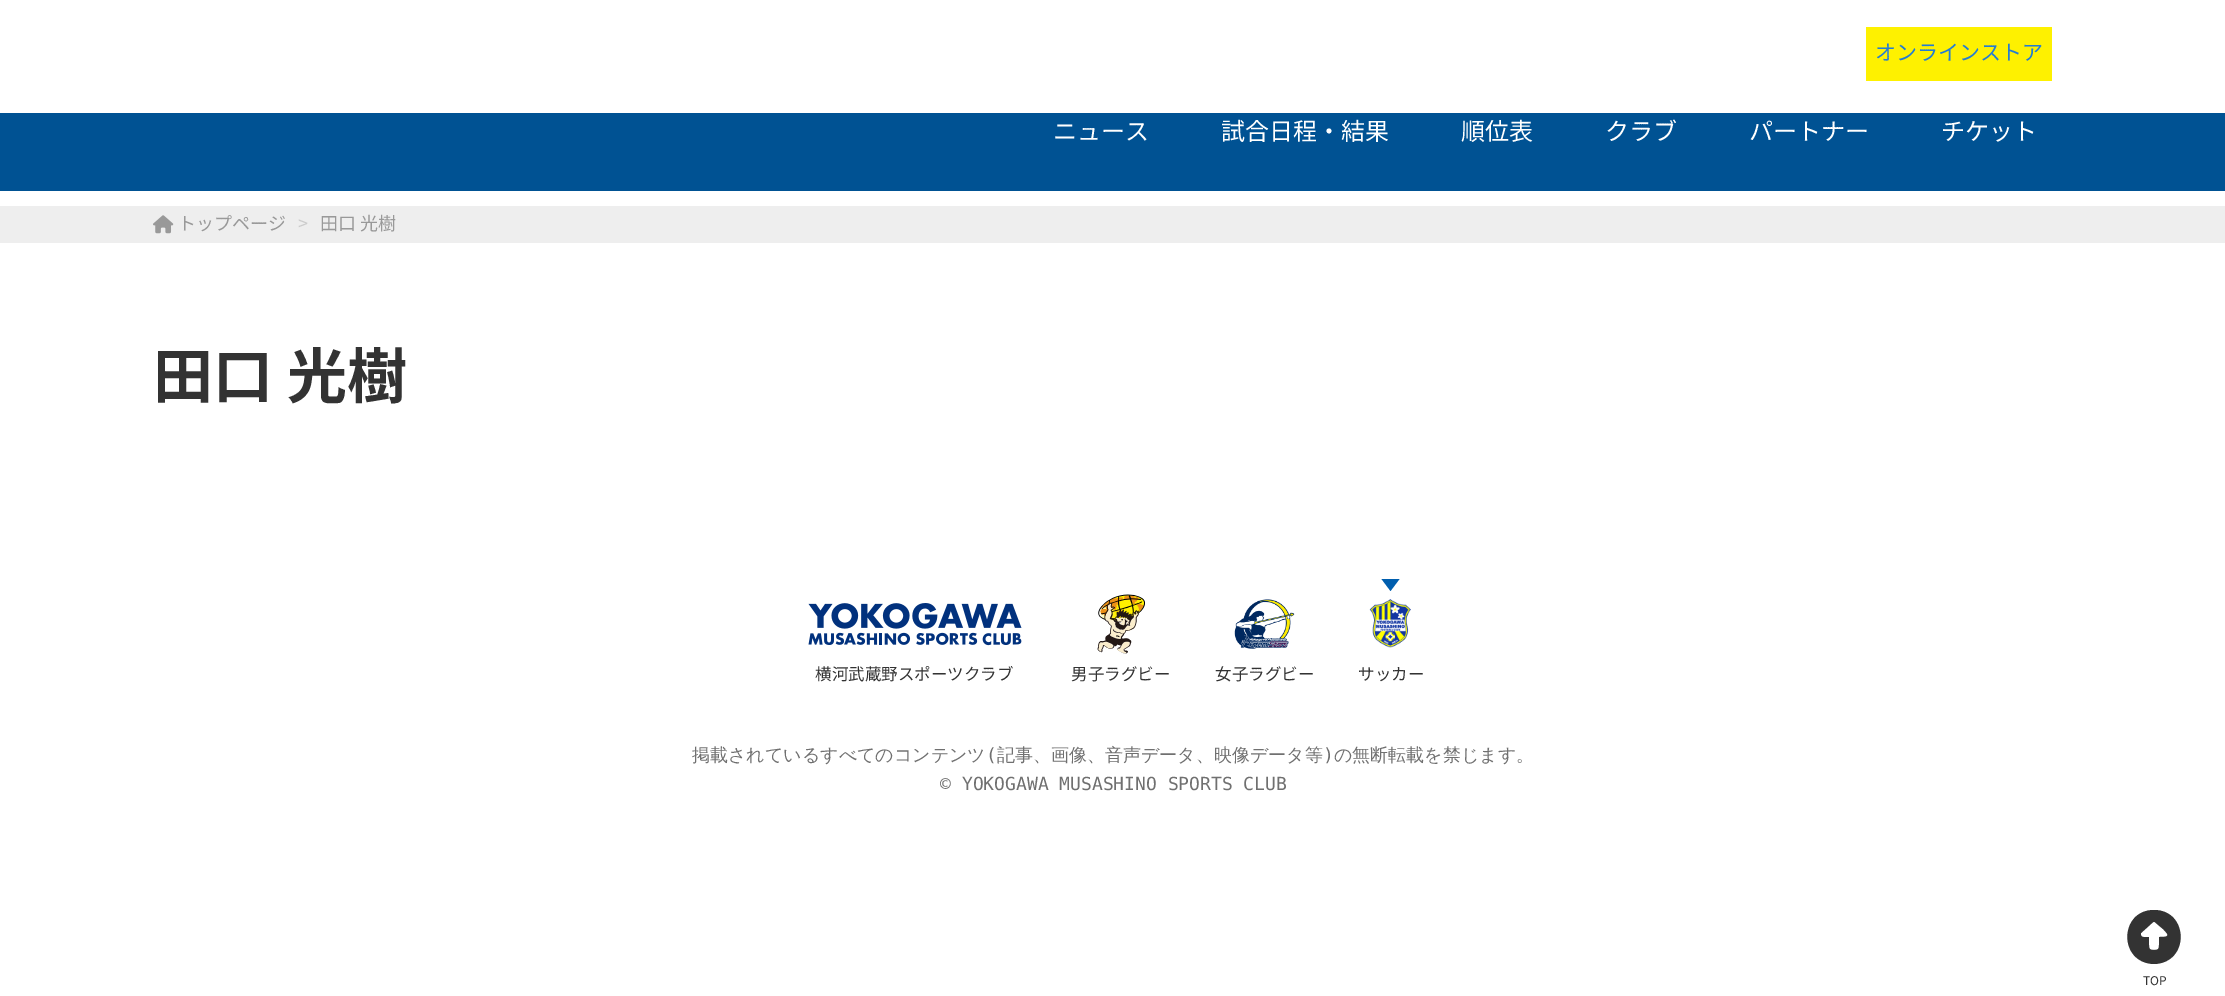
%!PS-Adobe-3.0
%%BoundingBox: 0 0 2225 996
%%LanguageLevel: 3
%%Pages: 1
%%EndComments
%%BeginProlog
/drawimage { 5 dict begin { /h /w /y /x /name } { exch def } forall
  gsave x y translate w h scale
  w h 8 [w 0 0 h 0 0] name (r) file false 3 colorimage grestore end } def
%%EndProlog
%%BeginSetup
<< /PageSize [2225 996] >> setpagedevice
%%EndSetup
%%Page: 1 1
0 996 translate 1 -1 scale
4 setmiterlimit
1 setgray
0 0 2225 996 rectfill
0.996 0.945 0 setrgbcolor
1866 27 186 54 rectfill
0 0.322 0.576 setrgbcolor
0 113 2225 78 rectfill
0.933 setgray
0 206 2225 37 rectfill
(images/1.raw) 153 215 21 19 drawimage
(images/2.raw) 808 603 214 43 drawimage
(images/3.raw) 1097 594 48 60 drawimage
(images/4.raw) 1234 599 61 50 drawimage
0 0.369 0.682 setrgbcolor
newpath 1381.5 579 moveto 1399.5 579 lineto 1390.5 591 lineto closepath fill
(images/5.raw) 1369 599 42 49 drawimage
0.2 setgray
newpath 2154 964 moveto 2190 963 2189 910 2154 910 curveto 2119 910 2118 963 2154 964 curveto closepath 2141 933 moveto 2151 924 lineto 2154 921 2154 921 2157 924 curveto 2163 929 lineto 2170 936 2169 937 2159 937 curveto 2159 945 lineto 2159 949 2158 950 2154 950 curveto 2150 950 2149 949 2149 945 curveto 2149 937 lineto 2147 937 2141 938 2141 935 curveto closepath fill
/NotoSansJP-Regular [21 0 0 -21 0 0] selectfont
0.137 0.486 0.835 setrgbcolor
1875 60 moveto (オンラインストア) show
/NotoSansJP-Regular [24 0 0 -24 0 0] selectfont
1 setgray
1053 140 moveto (ニュース) show
1221 140 moveto (試合日程・結果) show
1461 140 moveto (順位表) show
1605 140 moveto (クラブ) show
1749 140 moveto (パートナー) show
1941 140 moveto (チケット) show
/NotoSansJP-Regular [18 0 0 -18 0 0] selectfont
0.6 setgray
178 230 moveto (トップページ) show
0.8 setgray
298 230 moveto (>) show
0.6 setgray
320 230 moveto (田口 光樹) show
/NotoSansJP-Bold [60 0 0 -60 0 0] selectfont
0.2 setgray
153 398 moveto (田口 光樹) show
/NotoSansJP-Regular [16.5 0 0 -16.5 0 0] selectfont
815 680 moveto (横河武蔵野スポーツクラブ) show
1071 680 moveto (男子ラグビー) show
1215 680 moveto (女子ラグビー) show
1358 680 moveto (サッカー) show
/WenQuanYiZenHei-Medium [18 0 0 -18 0 0] selectfont
0.439 setgray
692 761 moveto (掲載されているすべてのコンテンツ) show
/DejaVuSansMono-Regular [18 0 0 -18 0 0] selectfont
986 761 moveto (\() show
/WenQuanYiZenHei-Medium [18 0 0 -18 0 0] selectfont
997 761 moveto (記事、画像、音声データ、映像データ等) show
/DejaVuSansMono-Regular [18 0 0 -18 0 0] selectfont
1323 761 moveto (\)) show
/WenQuanYiZenHei-Medium [18 0 0 -18 0 0] selectfont
1334 761 moveto (の無断転載を禁じます。) show
/DejaVuSansMono-Regular [18 0 0 -18 0 0] selectfont
940 790 moveto (© YOKOGAWA MUSASHINO SPORTS CLUB) show
/NotoSansJP-Regular [12 0 0 -12 0 0] selectfont
0.2 setgray
2143 985 moveto (TOP) show
showpage
%%EOF
